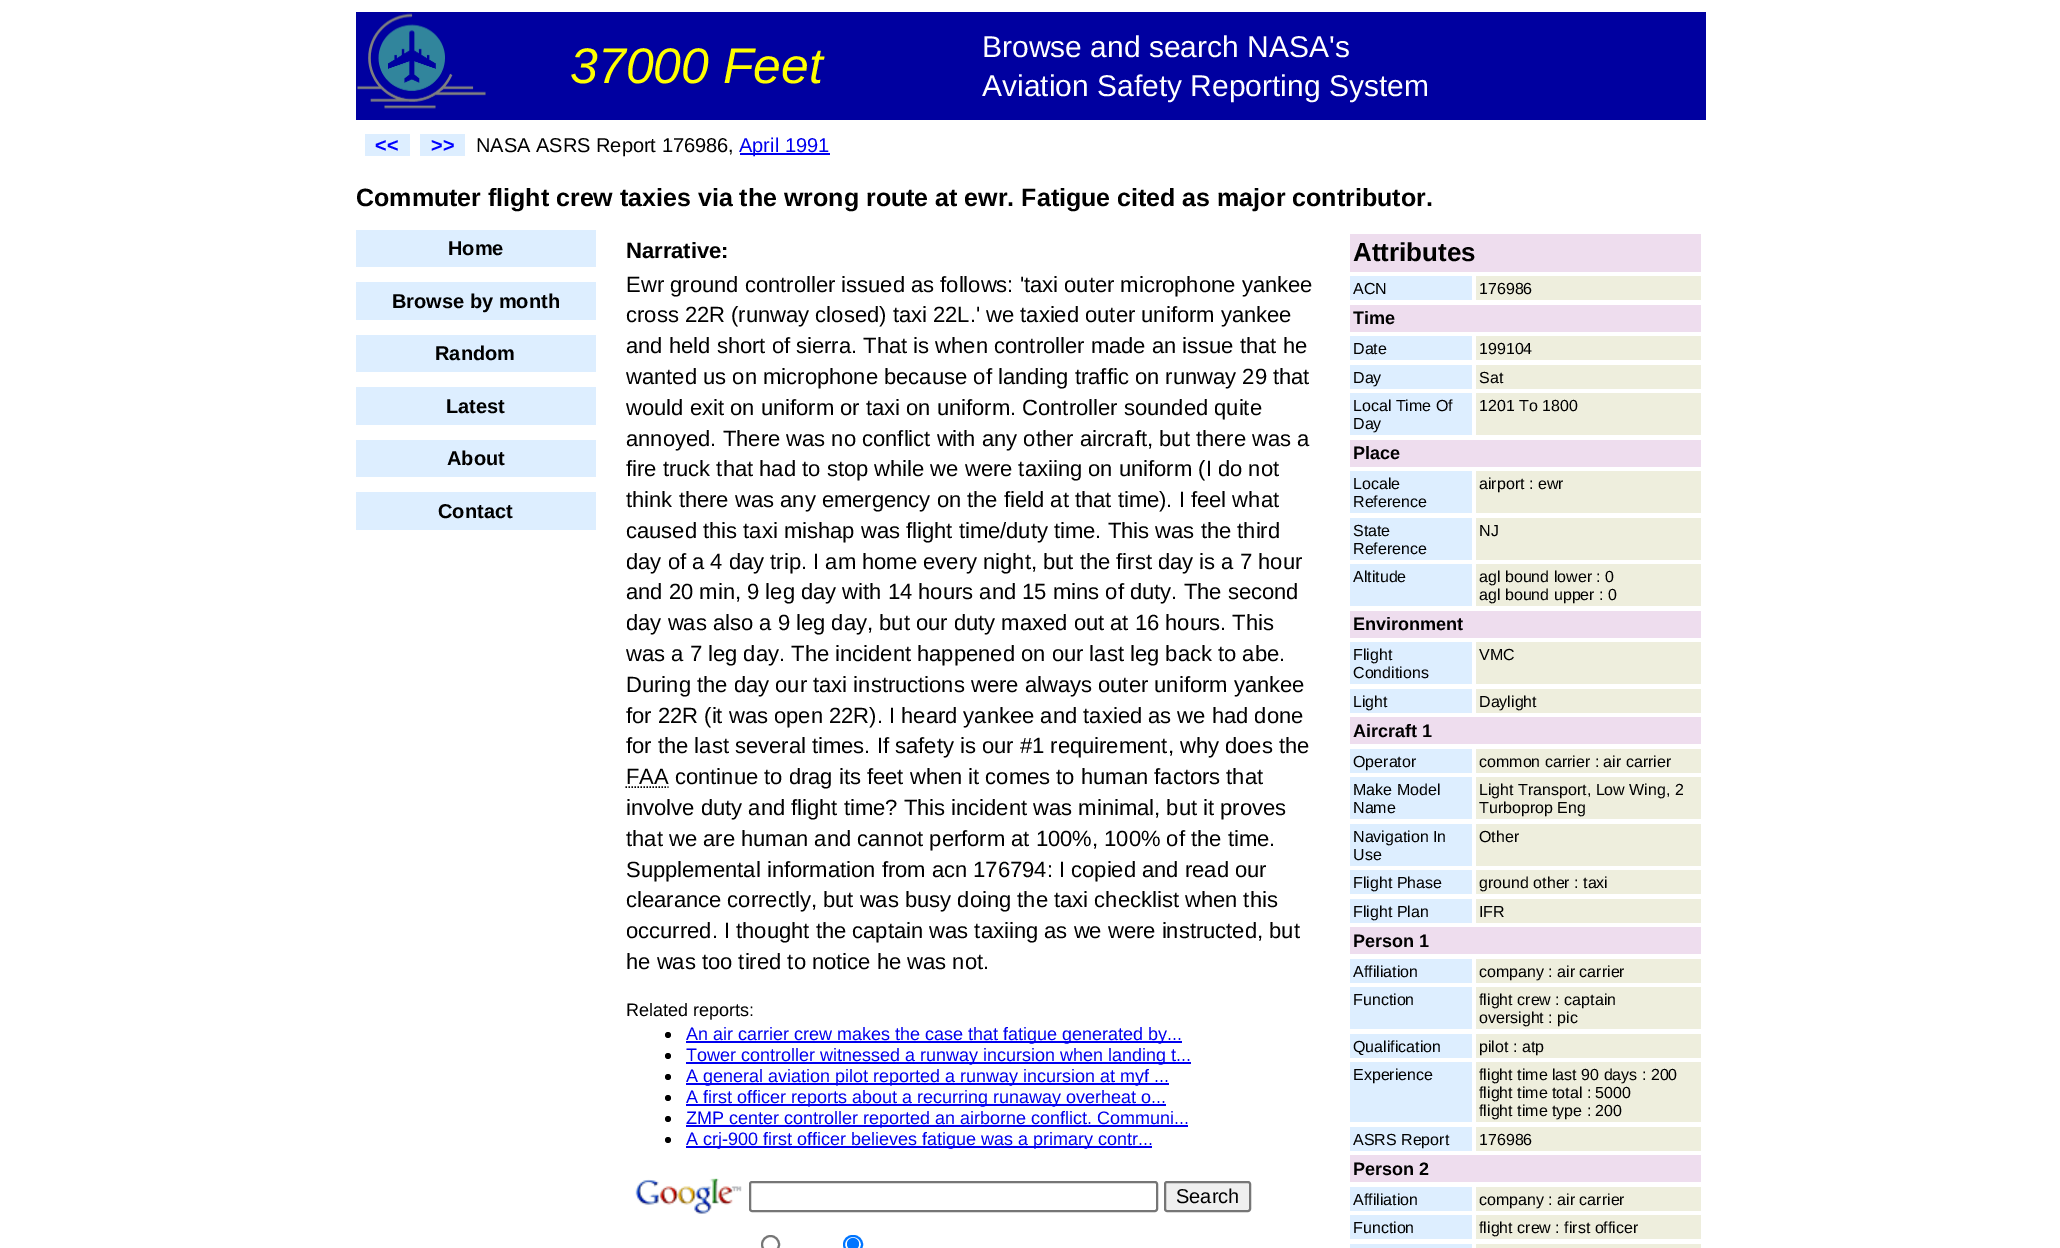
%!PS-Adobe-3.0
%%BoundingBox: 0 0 2060 1248
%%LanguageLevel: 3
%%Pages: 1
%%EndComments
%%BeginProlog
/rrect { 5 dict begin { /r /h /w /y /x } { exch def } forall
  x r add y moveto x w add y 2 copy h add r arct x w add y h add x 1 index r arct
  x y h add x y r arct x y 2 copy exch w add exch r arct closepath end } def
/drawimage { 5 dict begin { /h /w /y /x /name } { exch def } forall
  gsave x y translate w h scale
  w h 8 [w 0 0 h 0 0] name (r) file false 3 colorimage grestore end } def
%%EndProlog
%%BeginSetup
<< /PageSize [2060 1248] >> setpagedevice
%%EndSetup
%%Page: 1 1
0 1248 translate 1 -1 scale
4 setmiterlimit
1 setgray
0 0 2060 1248 rectfill
0 0 0.627 setrgbcolor
356 12 1350 108 rectfill
(images/1.raw) 357 13 129 96 drawimage
0.867 0.933 1 setrgbcolor
365 134 45 22 rectfill
420 134 45 22 rectfill
0 0 0.933 setrgbcolor
740 153 90 2 rectfill
0.867 0.933 1 setrgbcolor
356 230 240 37 rectfill
356 282 240 38 rectfill
356 335 240 37 rectfill
356 387 240 38 rectfill
356 440 240 37 rectfill
356 492 240 38 rectfill
0 setgray
1.5 setlinewidth
[1.5 1.5] 0 setdash
newpath 625.5 787 moveto 668.5 787 lineto stroke
newpath 668 1035 3 0 360 arc closepath fill
0 0 0.933 setrgbcolor
686 1041 496 2 rectfill
0 setgray
newpath 668 1056 3 0 360 arc closepath fill
0 0 0.933 setrgbcolor
686 1062 505 2 rectfill
0 setgray
newpath 668 1077 3 0 360 arc closepath fill
0 0 0.933 setrgbcolor
686 1083 483 2 rectfill
0 setgray
newpath 668 1098 3 0 360 arc closepath fill
0 0 0.933 setrgbcolor
686 1104 480 2 rectfill
0 setgray
newpath 668 1119 3 0 360 arc closepath fill
0 0 0.933 setrgbcolor
686 1125 502 2 rectfill
0 setgray
newpath 668 1140 3 0 360 arc closepath fill
0 0 0.933 setrgbcolor
686 1146 466 2 rectfill
(images/2.raw) 635 1178 107 36 drawimage
0.463 setgray
2 setlinewidth
[] 0 setdash
750 1182 407 29 2 rrect stroke
0.937 setgray
1165 1182 85 29 2 rrect gsave fill grestore
0.463 setgray
stroke
newpath 770.5 1244.5 8.5 0 360 arc closepath stroke
0 0.459 1 setrgbcolor
844 1236 18 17 8.5 rrect stroke
newpath 853 1244 6 0 360 arc closepath fill
0.933 0.867 0.933 setrgbcolor
1350 234 351 38 rectfill
0.867 0.933 1 setrgbcolor
1350 276 122 24 rectfill
0.933 0.933 0.867 setrgbcolor
1476 276 225 24 rectfill
0.933 0.867 0.933 setrgbcolor
1350 305 351 27 rectfill
0.867 0.933 1 setrgbcolor
1350 336 122 24 rectfill
0.933 0.933 0.867 setrgbcolor
1476 336 225 24 rectfill
0.867 0.933 1 setrgbcolor
1350 365 122 24 rectfill
0.933 0.933 0.867 setrgbcolor
1476 365 225 24 rectfill
0.867 0.933 1 setrgbcolor
1350 393 122 42 rectfill
0.933 0.933 0.867 setrgbcolor
1476 393 225 42 rectfill
0.933 0.867 0.933 setrgbcolor
1350 440 351 27 rectfill
0.867 0.933 1 setrgbcolor
1350 471 122 42 rectfill
0.933 0.933 0.867 setrgbcolor
1476 471 225 42 rectfill
0.867 0.933 1 setrgbcolor
1350 518 122 42 rectfill
0.933 0.933 0.867 setrgbcolor
1476 518 225 42 rectfill
0.867 0.933 1 setrgbcolor
1350 564 122 42 rectfill
0.933 0.933 0.867 setrgbcolor
1476 564 225 42 rectfill
0.933 0.867 0.933 setrgbcolor
1350 611 351 27 rectfill
0.867 0.933 1 setrgbcolor
1350 642 122 42 rectfill
0.933 0.933 0.867 setrgbcolor
1476 642 225 42 rectfill
0.867 0.933 1 setrgbcolor
1350 689 122 24 rectfill
0.933 0.933 0.867 setrgbcolor
1476 689 225 24 rectfill
0.933 0.867 0.933 setrgbcolor
1350 717 351 27 rectfill
0.867 0.933 1 setrgbcolor
1350 749 122 24 rectfill
0.933 0.933 0.867 setrgbcolor
1476 749 225 24 rectfill
0.867 0.933 1 setrgbcolor
1350 777 122 42 rectfill
0.933 0.933 0.867 setrgbcolor
1476 777 225 42 rectfill
0.867 0.933 1 setrgbcolor
1350 824 122 42 rectfill
0.933 0.933 0.867 setrgbcolor
1476 824 225 42 rectfill
0.867 0.933 1 setrgbcolor
1350 870 122 24 rectfill
0.933 0.933 0.867 setrgbcolor
1476 870 225 24 rectfill
0.867 0.933 1 setrgbcolor
1350 899 122 24 rectfill
0.933 0.933 0.867 setrgbcolor
1476 899 225 24 rectfill
0.933 0.867 0.933 setrgbcolor
1350 927 351 27 rectfill
0.867 0.933 1 setrgbcolor
1350 959 122 24 rectfill
0.933 0.933 0.867 setrgbcolor
1476 959 225 24 rectfill
0.867 0.933 1 setrgbcolor
1350 987 122 42 rectfill
0.933 0.933 0.867 setrgbcolor
1476 987 225 42 rectfill
0.867 0.933 1 setrgbcolor
1350 1034 122 24 rectfill
0.933 0.933 0.867 setrgbcolor
1476 1034 225 24 rectfill
0.867 0.933 1 setrgbcolor
1350 1062 122 60 rectfill
0.933 0.933 0.867 setrgbcolor
1476 1062 225 60 rectfill
0.867 0.933 1 setrgbcolor
1350 1127 122 24 rectfill
0.933 0.933 0.867 setrgbcolor
1476 1127 225 24 rectfill
0.933 0.867 0.933 setrgbcolor
1350 1155 351 27 rectfill
0.867 0.933 1 setrgbcolor
1350 1187 122 24 rectfill
0.933 0.933 0.867 setrgbcolor
1476 1187 225 24 rectfill
0.867 0.933 1 setrgbcolor
1350 1215 122 24 rectfill
0.933 0.933 0.867 setrgbcolor
1476 1215 225 24 rectfill
0.867 0.933 1 setrgbcolor
1350 1244 122 4 rectfill
0.933 0.933 0.867 setrgbcolor
1476 1244 225 4 rectfill
/LiberationSans-Italic [50 0 0 -50 0 0] selectfont
1 1 0 setrgbcolor
570 83 moveto (37000 Feet) show
/LiberationSans-Regular [30 0 0 -30 0 0] selectfont
1 setgray
982 57 moveto (Browse and search NASA's) show
982 96 moveto (Aviation Safety Reporting System) show
/LiberationSans-Bold [20 0 0 -20 0 0] selectfont
0 0 1 setrgbcolor
375 152 moveto (<<) show
431 152 moveto (>>) show
/LiberationSans-Regular [20 0 0 -20 0 0] selectfont
0 setgray
476 152 moveto (NASA ASRS Report 176986,) show
0 0 0.933 setrgbcolor
739 152 moveto (April 1991) show
/LiberationSans-Bold [25 0 0 -25 0 0] selectfont
0 setgray
356 206 moveto (Commuter flight crew taxies via the wrong route at ewr. Fatigue cited as major contributor.) show
/LiberationSans-Bold [20 0 0 -20 0 0] selectfont
448 255 moveto (Home) show
392 308 moveto (Browse by month) show
435 360 moveto (Random) show
446 413 moveto (Latest) show
447 465 moveto (About) show
438 518 moveto (Contact) show
/LiberationSans-Bold [22 0 0 -22 0 0] selectfont
626 258 moveto (Narrative:) show
/LiberationSans-Regular [22 0 0 -22 0 0] selectfont
626 292 moveto (Ewr ground controller issued as follows: 'taxi outer microphone yankee) show
626 322 moveto (cross 22R \(runway closed\) taxi 22L.' we taxied outer uniform yankee) show
626 353 moveto (and held short of sierra. That is when controller made an issue that he) show
626 384 moveto (wanted us on microphone because of landing traffic on runway 29 that) show
626 415 moveto (would exit on uniform or taxi on uniform. Controller sounded quite) show
626 446 moveto (annoyed. There was no conflict with any other aircraft, but there was a) show
626 476 moveto (fire truck that had to stop while we were taxiing on uniform \(I do not) show
626 507 moveto (think there was any emergency on the field at that time\). I feel what) show
626 538 moveto (caused this taxi mishap was flight time/duty time. This was the third) show
626 569 moveto (day of a 4 day trip. I am home every night, but the first day is a 7 hour) show
626 599 moveto (and 20 min, 9 leg day with 14 hours and 15 mins of duty. The second) show
626 630 moveto (day was also a 9 leg day, but our duty maxed out at 16 hours. This) show
626 661 moveto (was a 7 leg day. The incident happened on our last leg back to abe.) show
626 692 moveto (During the day our taxi instructions were always outer uniform yankee) show
626 723 moveto (for 22R \(it was open 22R\). I heard yankee and taxied as we had done) show
626 753 moveto (for the last several times. If safety is our #1 requirement, why does the) show
626 784 moveto (FAA continue to drag its feet when it comes to human factors that) show
626 815 moveto (involve duty and flight time? This incident was minimal, but it proves) show
626 846 moveto (that we are human and cannot perform at 100%, 100% of the time.) show
626 877 moveto (Supplemental information from acn 176794: I copied and read our) show
626 907 moveto (clearance correctly, but was busy doing the taxi checklist when this) show
626 938 moveto (occurred. I thought the captain was taxiing as we were instructed, but) show
626 969 moveto (he was too tired to notice he was not.) show
/LiberationSans-Regular [18 0 0 -18 0 0] selectfont
626 1016 moveto (Related reports:) show
0 0 0.933 setrgbcolor
686 1040 moveto (An air carrier crew makes the case that fatigue generated by...) show
686 1061 moveto (Tower controller witnessed a runway incursion when landing t...) show
686 1082 moveto (A general aviation pilot reported a runway incursion at myf ...) show
686 1103 moveto (A first officer reports about a recurring runaway overheat o...) show
686 1124 moveto (ZMP center controller reported an airborne conflict. Communi...) show
686 1145 moveto (A crj-900 first officer believes fatigue was a primary contr...) show
/LiberationSans-Regular [20 0 0 -20 0 0] selectfont
0 setgray
1176 1203 moveto (Search) show
/LiberationSans-Bold [26 0 0 -26 0 0] selectfont
1353 261 moveto (Attributes) show
/LiberationSans-Regular [16 0 0 -16 0 0] selectfont
1353 294 moveto (ACN) show
1479 294 moveto (176986) show
/LiberationSans-Bold [18 0 0 -18 0 0] selectfont
1353 324 moveto (Time) show
/LiberationSans-Regular [16 0 0 -16 0 0] selectfont
1353 354 moveto (Date) show
1479 354 moveto (199104) show
1353 383 moveto (Day) show
1479 383 moveto (Sat) show
1353 411 moveto (Local Time Of) show
1353 429 moveto (Day) show
1479 411 moveto (1201 To 1800) show
/LiberationSans-Bold [18 0 0 -18 0 0] selectfont
1353 459 moveto (Place) show
/LiberationSans-Regular [16 0 0 -16 0 0] selectfont
1353 489 moveto (Locale) show
1353 507 moveto (Reference) show
1479 489 moveto (airport : ewr) show
1353 536 moveto (State) show
1353 554 moveto (Reference) show
1479 536 moveto (NJ) show
1353 582 moveto (Altitude) show
1479 582 moveto (agl bound lower : 0) show
1479 600 moveto (agl bound upper : 0) show
/LiberationSans-Bold [18 0 0 -18 0 0] selectfont
1353 630 moveto (Environment) show
/LiberationSans-Regular [16 0 0 -16 0 0] selectfont
1353 660 moveto (Flight) show
1353 678 moveto (Conditions) show
1479 660 moveto (VMC) show
1353 707 moveto (Light) show
1479 707 moveto (Daylight) show
/LiberationSans-Bold [18 0 0 -18 0 0] selectfont
1353 737 moveto (Aircraft 1) show
/LiberationSans-Regular [16 0 0 -16 0 0] selectfont
1353 767 moveto (Operator) show
1479 767 moveto (common carrier : air carrier) show
1353 795 moveto (Make Model) show
1353 813 moveto (Name) show
1479 795 moveto (Light Transport, Low Wing, 2) show
1479 813 moveto (Turboprop Eng) show
1353 842 moveto (Navigation In) show
1353 860 moveto (Use) show
1479 842 moveto (Other) show
1353 888 moveto (Flight Phase) show
1479 888 moveto (ground other : taxi) show
1353 917 moveto (Flight Plan) show
1479 917 moveto (IFR) show
/LiberationSans-Bold [18 0 0 -18 0 0] selectfont
1353 947 moveto (Person 1) show
/LiberationSans-Regular [16 0 0 -16 0 0] selectfont
1353 977 moveto (Affiliation) show
1479 977 moveto (company : air carrier) show
1353 1005 moveto (Function) show
1479 1005 moveto (flight crew : captain) show
1479 1023 moveto (oversight : pic) show
1353 1052 moveto (Qualification) show
1479 1052 moveto (pilot : atp) show
1353 1080 moveto (Experience) show
1479 1080 moveto (flight time last 90 days : 200) show
1479 1098 moveto (flight time total : 5000) show
1479 1116 moveto (flight time type : 200) show
1353 1145 moveto (ASRS Report) show
1479 1145 moveto (176986) show
/LiberationSans-Bold [18 0 0 -18 0 0] selectfont
1353 1175 moveto (Person 2) show
/LiberationSans-Regular [16 0 0 -16 0 0] selectfont
1353 1205 moveto (Affiliation) show
1479 1205 moveto (company : air carrier) show
1353 1233 moveto (Function) show
1479 1233 moveto (flight crew : first officer) show
showpage
%%EOF
